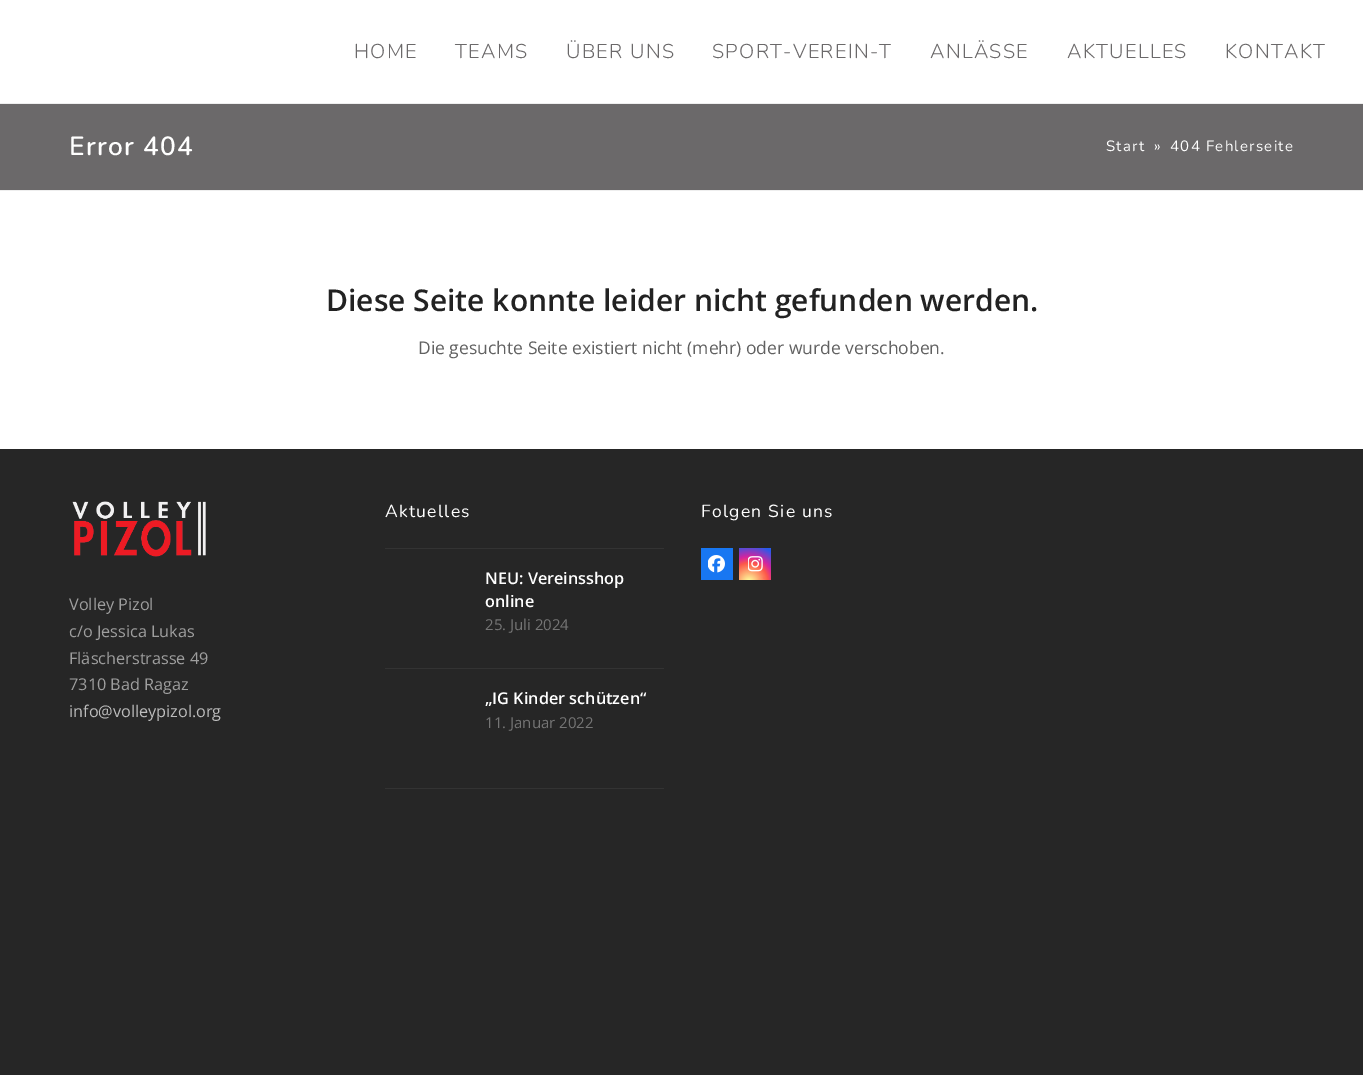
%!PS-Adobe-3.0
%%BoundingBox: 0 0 1363 1075
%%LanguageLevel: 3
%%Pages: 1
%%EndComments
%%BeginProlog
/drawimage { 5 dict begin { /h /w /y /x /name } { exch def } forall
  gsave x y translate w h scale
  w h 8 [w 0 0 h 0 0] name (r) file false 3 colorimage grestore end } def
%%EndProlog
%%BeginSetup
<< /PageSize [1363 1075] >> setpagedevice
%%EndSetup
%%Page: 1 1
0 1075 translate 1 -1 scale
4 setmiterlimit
1 setgray
0 0 1363 1075 rectfill
0.42 0.412 0.416 setrgbcolor
0 104 1363 86 rectfill
0.933 setgray
0 103 1363 1 rectfill
0 190 1363 1 rectfill
0.149 setgray
0 449 1363 626 rectfill
0.2 setgray
385 548 279 1 rectfill
385 668 279 1 rectfill
385 788 279 1 rectfill
0.094 0.467 0.949 setrgbcolor
701 548 32 32 rectfill
(images/1.raw) 708 555 17 18 drawimage
gsave newpath 739 548 moveto 771 548 lineto 771 580 lineto 739 580 lineto closepath clip newpath 749 582 translate 42 42 scale
<< /ShadingType 3 /ColorSpace /DeviceRGB /Coords [0 0 0 0 0 1] /Extend [true true] /Function << /FunctionType 3 /Domain [0 1] /Functions [<< /FunctionType 2 /Domain [0 1] /C0 [0.992 0.957 0.592] /C1 [0.992 0.957 0.592] /N 1 >> << /FunctionType 2 /Domain [0 1] /C0 [0.992 0.957 0.592] /C1 [0.992 0.349 0.286] /N 1 >> << /FunctionType 2 /Domain [0 1] /C0 [0.992 0.349 0.286] /C1 [0.839 0.141 0.624] /N 1 >> << /FunctionType 2 /Domain [0 1] /C0 [0.839 0.141 0.624] /C1 [0.157 0.353 0.922] /N 1 >> << /FunctionType 2 /Domain [0 1] /C0 [0.157 0.353 0.922] /C1 [0.157 0.353 0.922] /N 1 >>] /Bounds [0.05 0.45 0.6 0.9] /Encode [0 1 0 1 0 1 0 1 0 1] >> >> shfill grestore
(images/2.raw) 748 556 15 16 drawimage
(images/3.raw) 72 501 134 56 drawimage
/Nunito-Light [20 0 0 -20 0 0] selectfont
0.42 0.412 0.416 setrgbcolor
354 58 moveto 1.25 0 (HOME) ashow
455 58 moveto 1.25 0 (TEAMS) ashow
566 58 moveto 1.25 0 (ÜBER UNS) ashow
712 58 moveto 1.25 0 (SPORT-VEREIN-T) ashow
930 58 moveto 1.25 0 (ANLÄSSE) ashow
1067 58 moveto 1.25 0 (AKTUELLES) ashow
1225 58 moveto 1.25 0 (KONTAKT) ashow
/Nunito-SemiBold [26.25 0 0 -26.25 0 0] selectfont
1 setgray
69 155 moveto 1.25 0 (Error 404) ashow
/Nunito-Regular [15 0 0 -15 0 0] selectfont
1106 151 moveto 1.25 0 (Start) ashow
1154 151 moveto 1.25 0 (») ashow
1170 151 moveto 1.25 0 (404 Fehlerseite) ashow
/OpenSans-SemiBold [30 0 0 -30 0 0] selectfont
0.133 setgray
326 311 moveto (Diese Seite konnte leider nicht gefunden werden.) show
/OpenSans-Regular [17.5 0 0 -17.5 0 0] selectfont
0.38 setgray
418 354 moveto (Die gesuchte Seite existiert nicht \(mehr\) oder wurde verschoben.) show
/Nunito-Regular [17.5 0 0 -17.5 0 0] selectfont
1 setgray
385 517 moveto 1.25 0 (Aktuelles) ashow
/OpenSans-SemiBold [16.25 0 0 -16.25 0 0] selectfont
485 584 moveto (NEU: Vereinsshop) show
485 607 moveto (online) show
/OpenSans-Regular [15 0 0 -15 0 0] selectfont
0.459 setgray
485 630 moveto (25. Juli 2024) show
/OpenSans-SemiBold [16.25 0 0 -16.25 0 0] selectfont
1 setgray
485 704 moveto („IG Kinder schützen“) show
/OpenSans-Regular [15 0 0 -15 0 0] selectfont
0.459 setgray
485 728 moveto (11. Januar 2022) show
/Nunito-Regular [17.5 0 0 -17.5 0 0] selectfont
1 setgray
701 517 moveto 1.25 0 (Folgen Sie uns) ashow
/OpenSans-Regular [16.25 0 0 -16.25 0 0] selectfont
0.62 setgray
69 610 moveto (Volley Pizol) show
69 637 moveto (c/o Jessica Lukas) show
69 664 moveto (Fläscherstrasse 49) show
69 690 moveto (7310 Bad Ragaz) show
0.741 setgray
69 717 moveto (info@volleypizol.org) show
showpage
%%EOF
